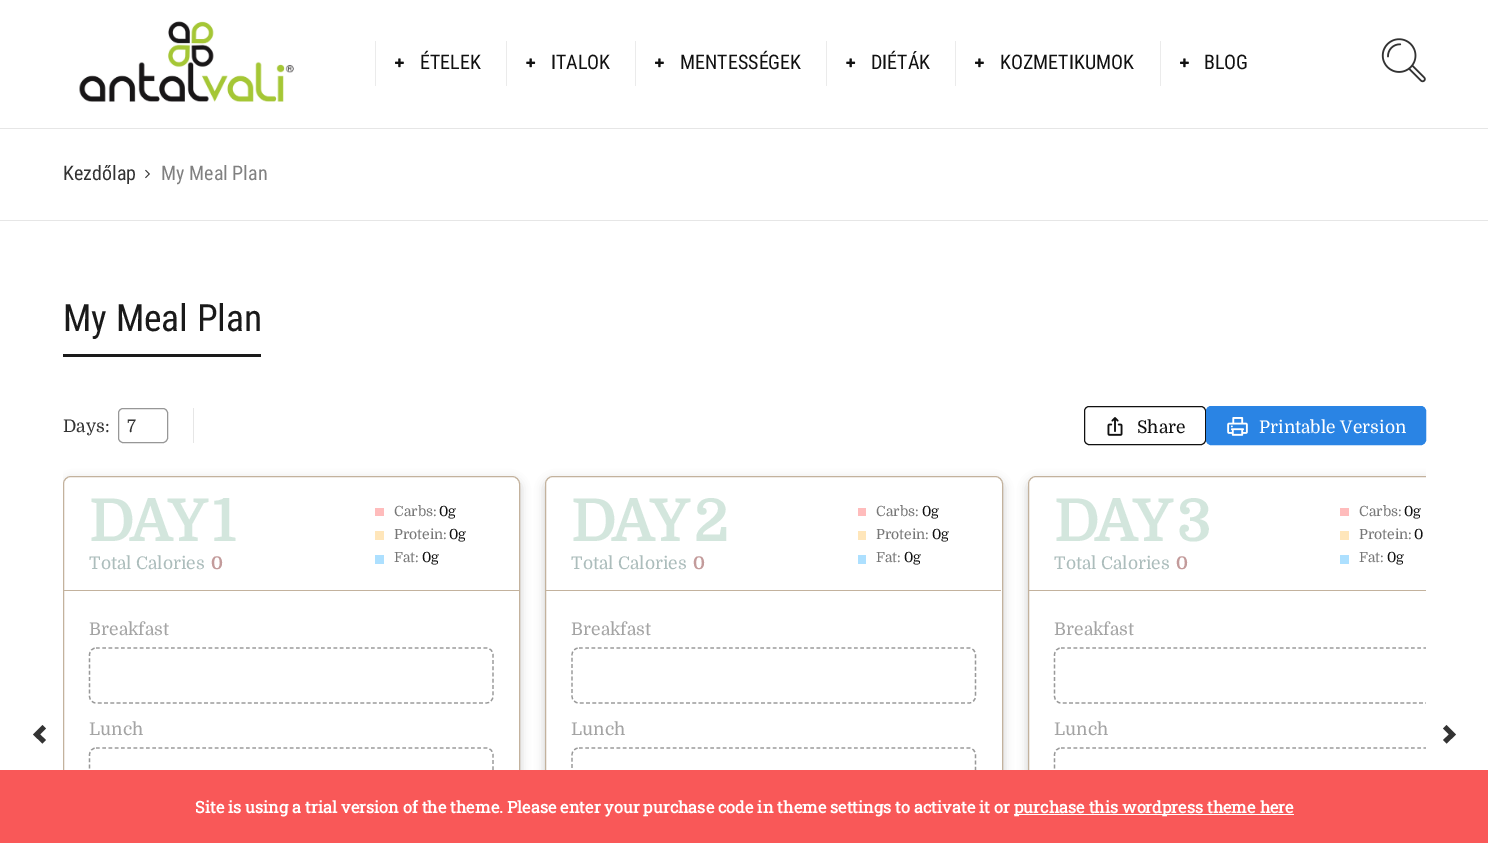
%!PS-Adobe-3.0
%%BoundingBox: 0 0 1488 843
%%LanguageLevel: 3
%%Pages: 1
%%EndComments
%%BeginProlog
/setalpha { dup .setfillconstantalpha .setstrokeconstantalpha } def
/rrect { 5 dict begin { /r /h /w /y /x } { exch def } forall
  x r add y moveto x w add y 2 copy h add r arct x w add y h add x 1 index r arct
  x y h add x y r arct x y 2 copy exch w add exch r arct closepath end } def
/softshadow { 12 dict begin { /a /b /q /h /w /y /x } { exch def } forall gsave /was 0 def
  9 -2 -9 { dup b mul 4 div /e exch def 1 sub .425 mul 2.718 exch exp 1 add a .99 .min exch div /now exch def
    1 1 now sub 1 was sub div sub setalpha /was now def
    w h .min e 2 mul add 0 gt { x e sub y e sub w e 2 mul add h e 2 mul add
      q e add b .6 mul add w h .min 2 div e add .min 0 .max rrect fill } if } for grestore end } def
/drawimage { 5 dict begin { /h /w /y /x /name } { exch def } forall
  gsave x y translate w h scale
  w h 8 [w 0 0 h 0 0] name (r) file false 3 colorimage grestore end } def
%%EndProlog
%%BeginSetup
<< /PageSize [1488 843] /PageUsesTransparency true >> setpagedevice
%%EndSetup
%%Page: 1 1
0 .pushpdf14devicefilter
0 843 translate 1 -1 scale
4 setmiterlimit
1 setgray
0 0 1488 843 rectfill
(images/1.raw) 79 21 215 81 drawimage
0.922 setgray
375 41 1 45 rectfill
(images/2.raw) 395 58 9 10 drawimage
506 41 1 45 rectfill
(images/3.raw) 526 58 10 10 drawimage
635 41 1 45 rectfill
(images/2.raw) 655 58 9 10 drawimage
826 41 1 45 rectfill
(images/3.raw) 846 58 10 10 drawimage
955 41 1 45 rectfill
(images/2.raw) 975 58 9 10 drawimage
1160 41 1 45 rectfill
(images/2.raw) 1180 58 9 10 drawimage
(images/4.raw) 1381 38 45 45 drawimage
0.902 setgray
0 128 1488 1 rectfill
0 220 1488 1 rectfill
(images/5.raw) 145 169 5 10 drawimage
0.102 setgray
63 354 198 3 rectfill
0.902 setgray
193 408 1 35 rectfill
0.592 setgray
118.5 408.5 49 34 4.5 rrect stroke
0.067 setgray
1084.5 406.5 121 38 4.5 rrect stroke
(images/6.raw) 1107 417 16 19 drawimage
0.165 0.518 0.894 setrgbcolor
1206.5 406.5 219 38 4.5 rrect gsave fill grestore
stroke
(images/7.raw) 1227 417 21 19 drawimage
0.2 setgray
newpath 42.5 743.5 moveto 46 740 lineto 40 734.5 lineto 46 728.5 lineto 42.5 725 lineto 33 734.5 lineto closepath fill
gsave
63 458 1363 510 rectclip
0 setgray
63 480 457 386 8 5 0.2 softshadow
grestore
1 setgray
63.5 476.5 456 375 7.5 rrect gsave fill grestore
0.765 0.698 0.616 setrgbcolor
stroke
64 590 455 1 rectfill
1 0.737 0.737 setrgbcolor
375 508 9 8 rectfill
1 0.902 0.729 setrgbcolor
375 531 9 9 rectfill
0.678 0.878 1 setrgbcolor
375 555 9 9 rectfill
0.6 setgray
1.2 setlinewidth
[3.75 2.5] 0 setdash
newpath 96 648 moveto 486 648 lineto 490 648 493 651 493 655 curveto 493 696 lineto 493 700 490 703 486 703 curveto 96 703 lineto 92.5 703 89.5 700 89.5 696 curveto 89.5 655 lineto 89.5 651 92.5 648 96 648 curveto closepath stroke
newpath 96 748 moveto 486 748 lineto 490 748 493 751 493 755 curveto 493 796 lineto 493 800 490 803 486 803 curveto 96 803 lineto 92.5 803 89.5 800 89.5 796 curveto 89.5 755 lineto 89.5 751 92.5 748 96 748 curveto closepath stroke
0 setgray
545 480 458 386 8 5 0.2 softshadow
1 setgray
545.5 476.5 457 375 7.5 rrect gsave fill grestore
0.765 0.698 0.616 setrgbcolor
1 setlinewidth
[] 0 setdash
stroke
546 590 455 1 rectfill
1 0.737 0.737 setrgbcolor
858 508 8 8 rectfill
1 0.902 0.729 setrgbcolor
858 531 8 9 rectfill
0.678 0.878 1 setrgbcolor
858 555 8 9 rectfill
0.6 setgray
1.2 setlinewidth
[3.75 2.5] 0 setdash
newpath 579 648 moveto 969 648 lineto 972.5 648 975.5 651 975.5 655 curveto 975.5 696 lineto 975.5 700 972.5 703 969 703 curveto 579 703 lineto 575 703 572 700 572 696 curveto 572 655 lineto 572 651 575 648 579 648 curveto closepath stroke
newpath 579 748 moveto 969 748 lineto 972.5 748 975.5 751 975.5 755 curveto 975.5 796 lineto 975.5 800 972.5 803 969 803 curveto 579 803 lineto 575 803 572 800 572 796 curveto 572 755 lineto 572 751 575 748 579 748 curveto closepath stroke
gsave
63 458 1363 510 rectclip
0 setgray
1028 480 457 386 8 5 0.2 softshadow
grestore
1 setgray
newpath 1036 476 moveto 1426 476 lineto 1426 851 lineto 1036 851 lineto 1031.5 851 1028 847.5 1028 843 curveto 1028 484 lineto 1028 479.5 1031.5 476 1036 476 curveto closepath fill
gsave
63 458 1363 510 rectclip
0.765 0.698 0.616 setrgbcolor
1 setlinewidth
[] 0 setdash
1028.5 476.5 456 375 7.5 rrect stroke
grestore
0.765 0.698 0.616 setrgbcolor
1029 590 397 1 rectfill
1 0.737 0.737 setrgbcolor
1340 508 9 8 rectfill
1 0.902 0.729 setrgbcolor
1340 531 9 9 rectfill
0.678 0.878 1 setrgbcolor
1340 555 9 9 rectfill
gsave
1029 591 397 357 rectclip
0.6 setgray
newpath 1061 648 moveto 1451 648 lineto 1455 648 1458 651 1458 655 curveto 1458 696 lineto 1458 700 1455 703 1451 703 curveto 1061 703 lineto 1057.5 703 1054.5 700 1054.5 696 curveto 1054.5 655 lineto 1054.5 651 1057.5 648 1061 648 curveto closepath stroke
newpath 1061 748 moveto 1451 748 lineto 1455 748 1458 751 1458 755 curveto 1458 796 lineto 1458 800 1455 803 1451 803 curveto 1061 803 lineto 1057.5 803 1054.5 800 1054.5 796 curveto 1054.5 755 lineto 1054.5 751 1057.5 748 1061 748 curveto closepath stroke
grestore
0.2 setgray
newpath 1446.5 725 moveto 1443 728.5 lineto 1449 734.5 lineto 1443 740 lineto 1446.5 743.5 lineto 1456 734.5 lineto closepath fill
0.976 0.345 0.345 setrgbcolor
0 770 1488 73 rectfill
1 setgray
1014 814 280 1 rectfill
/RobotoCondensed-Regular [20 0 0 -20 0 0] selectfont
0.067 setgray
420 69 moveto (ÉTELEK) show
551 69 moveto (ITALOK) show
680 69 moveto (MENTESSÉGEK) show
871 69 moveto (DIÉTÁK) show
1000 69 moveto (KOZMETIKUMOK) show
1204 69 moveto (BLOG) show
0.2 setgray
63 180 moveto (Kezdőlap) show
0.502 setgray
161 180 moveto (My Meal Plan) show
/RobotoCondensed-Regular [37.5 0 0 -37.5 0 0] selectfont
0.102 setgray
63 331 moveto (My Meal Plan) show
/Domine-Regular [17.5 0 0 -17.5 0 0] selectfont
0.2 setgray
63 432 moveto (Days:) show
127 432 moveto (7) show
0.067 setgray
1137 433 moveto (Share) show
1 setgray
1259 433 moveto (Printable Version) show
/Domine-Bold [59 0 0 -59 0 0] selectfont
0.827 0.902 0.867 setrgbcolor
89 541 moveto -5 0 (DAY 1) ashow
/Domine-Regular [17.5 0 0 -17.5 0 0] selectfont
0.675 0.741 0.737 setrgbcolor
89 569 moveto (Total Calories) show
/Domine-Bold [17.5 0 0 -17.5 0 0] selectfont
0.765 0.608 0.608 setrgbcolor
211 569 moveto (0) show
/Domine-Regular [14 0 0 -14 0 0] selectfont
0.467 setgray
394 516 moveto (Carbs:) show
0.067 setgray
439 516 moveto (0g) show
0.467 setgray
394 539 moveto (Protein:) show
0.067 setgray
449 539 moveto (0g) show
0.467 setgray
394 562 moveto (Fat:) show
0.067 setgray
422 562 moveto (0g) show
/Domine-Regular [17.5 0 0 -17.5 0 0] selectfont
0.643 setgray
89 635 moveto (Breakfast) show
89 735 moveto (Lunch) show
/Domine-Bold [59 0 0 -59 0 0] selectfont
0.827 0.902 0.867 setrgbcolor
571 541 moveto -5 0 (DAY 2) ashow
/Domine-Regular [17.5 0 0 -17.5 0 0] selectfont
0.675 0.741 0.737 setrgbcolor
571 569 moveto (Total Calories) show
/Domine-Bold [17.5 0 0 -17.5 0 0] selectfont
0.765 0.608 0.608 setrgbcolor
693 569 moveto (0) show
/Domine-Regular [14 0 0 -14 0 0] selectfont
0.467 setgray
876 516 moveto (Carbs:) show
0.067 setgray
922 516 moveto (0g) show
0.467 setgray
876 539 moveto (Protein:) show
0.067 setgray
932 539 moveto (0g) show
0.467 setgray
876 562 moveto (Fat:) show
0.067 setgray
904 562 moveto (0g) show
/Domine-Regular [17.5 0 0 -17.5 0 0] selectfont
0.643 setgray
571 635 moveto (Breakfast) show
571 735 moveto (Lunch) show
/Domine-Bold [59 0 0 -59 0 0] selectfont
0.827 0.902 0.867 setrgbcolor
1054 541 moveto -5 0 (DAY 3) ashow
/Domine-Regular [17.5 0 0 -17.5 0 0] selectfont
0.675 0.741 0.737 setrgbcolor
1054 569 moveto (Total Calories) show
/Domine-Bold [17.5 0 0 -17.5 0 0] selectfont
0.765 0.608 0.608 setrgbcolor
1176 569 moveto (0) show
/Domine-Regular [14 0 0 -14 0 0] selectfont
0.467 setgray
1359 516 moveto (Carbs:) show
0.067 setgray
1404 516 moveto (0g) show
0.467 setgray
1359 539 moveto (Protein:) show
0.067 setgray
1414 539 moveto (0) show
0.467 setgray
1359 562 moveto (Fat:) show
0.067 setgray
1387 562 moveto (0g) show
/Domine-Regular [17.5 0 0 -17.5 0 0] selectfont
0.643 setgray
1054 635 moveto (Breakfast) show
1054 735 moveto (Lunch) show
/RobotoSlab-Bold [16.25 0 0 -16.25 0 0] selectfont
1 setgray
195 813 moveto (Site is using a trial version of the theme. Please enter your purchase code in theme settings to activate it or) show
1014 813 moveto (purchase this wordpress theme here) show
.poppdf14devicefilter showpage
%%EOF
